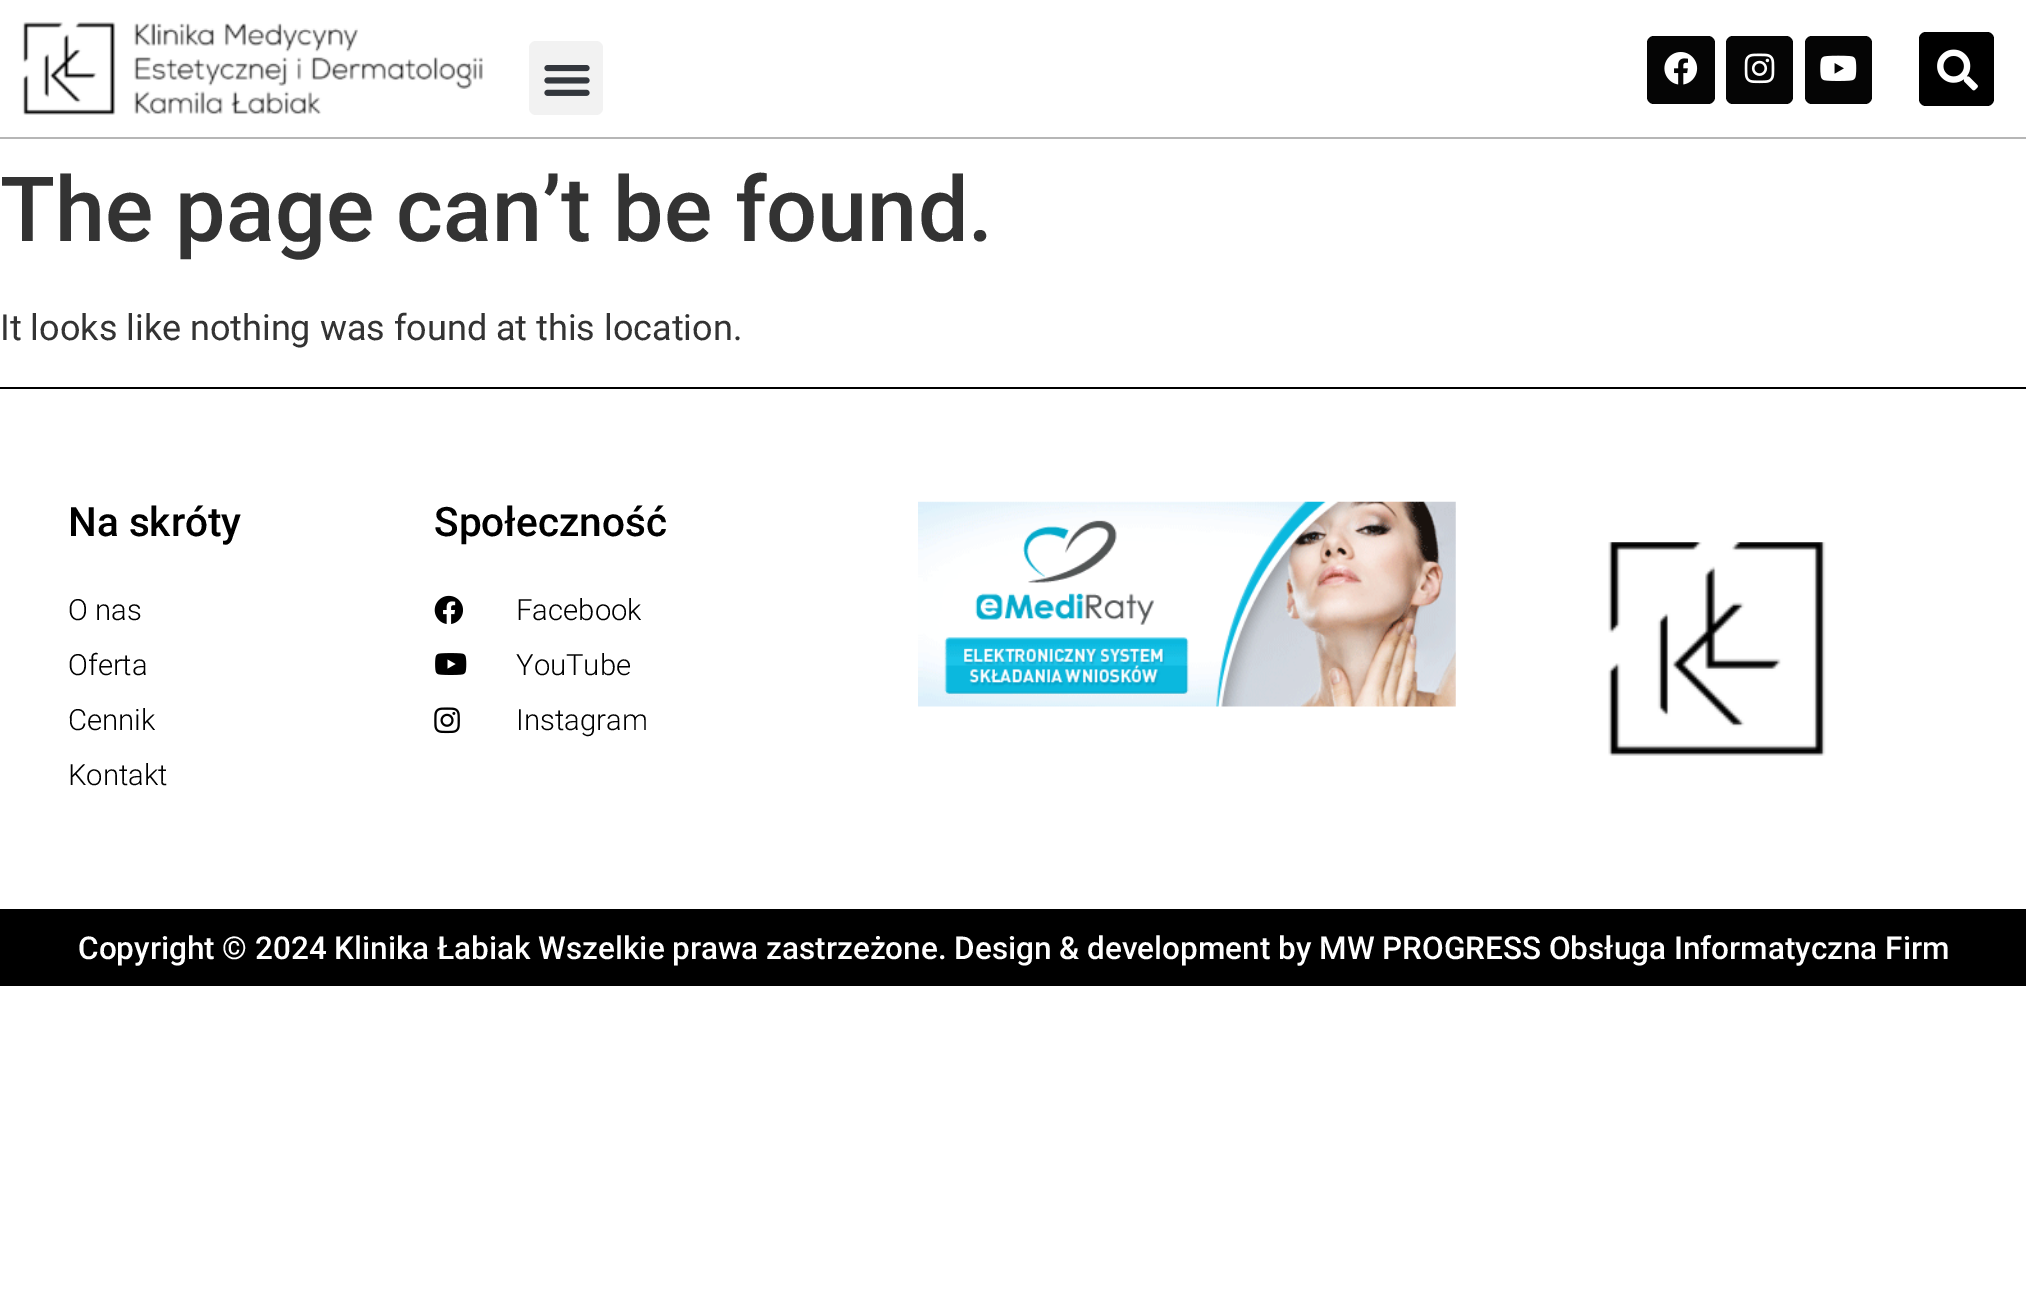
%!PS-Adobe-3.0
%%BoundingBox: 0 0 2026 1292
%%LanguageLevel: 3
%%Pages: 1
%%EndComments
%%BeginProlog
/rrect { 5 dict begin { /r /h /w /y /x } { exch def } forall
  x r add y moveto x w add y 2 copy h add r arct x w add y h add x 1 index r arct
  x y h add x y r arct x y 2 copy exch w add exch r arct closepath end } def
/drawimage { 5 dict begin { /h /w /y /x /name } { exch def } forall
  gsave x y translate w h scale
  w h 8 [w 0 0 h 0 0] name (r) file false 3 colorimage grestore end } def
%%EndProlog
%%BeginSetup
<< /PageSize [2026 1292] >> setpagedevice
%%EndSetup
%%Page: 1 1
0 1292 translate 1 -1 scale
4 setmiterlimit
1 setgray
0 0 2026 1292 rectfill
0.714 setgray
0 137 2026 2 rectfill
(images/1.raw) 22 22 461 93 drawimage
0.949 setgray
529 41 74 74 7 rrect fill
(images/2.raw) 544 65 46 31 drawimage
0.02 setgray
1647 36 68 68 7 rrect fill
(images/3.raw) 1664 52 34 33 drawimage
1726 36 67 68 7 rrect fill
(images/4.raw) 1744 53 31 31 drawimage
1805 36 67 68 7 rrect fill
(images/5.raw) 1820 55 37 26 drawimage
0 setgray
1919 32 75 74 7 rrect fill
(images/6.raw) 1937 49 41 42 drawimage
0 387 2026 2 rectfill
(images/7.raw) 434 595 29 29 drawimage
(images/8.raw) 435 653 32 22 drawimage
(images/9.raw) 434 707 26 27 drawimage
(images/10.raw) 918 501 538 206 drawimage
(images/11.raw) 1608 542 218 214 drawimage
0 909 2026 77 rectfill
/Roboto-Medium [90 0 0 -90 0 0] selectfont
0.2 setgray
0 241 moveto (The page can’t be found.) show
/Roboto-Regular [36 0 0 -36 0 0] selectfont
0 340 moveto (It looks like nothing was found at this location.) show
/Roboto-Medium [40.5 0 0 -40.5 0 0] selectfont
0 setgray
68 536 moveto (Na skróty) show
/Roboto-Light [29.25 0 0 -29.25 0 0] selectfont
68 620 moveto (O nas) show
68 675 moveto (Oferta) show
68 730 moveto (Cennik) show
68 785 moveto (Kontakt) show
/Roboto-Medium [40.5 0 0 -40.5 0 0] selectfont
434 536 moveto (Społeczność) show
/Roboto-Light [29.25 0 0 -29.25 0 0] selectfont
516 620 moveto (Facebook) show
516 675 moveto (YouTube) show
516 730 moveto (Instagram) show
/Roboto-Medium [31.5 0 0 -31.5 0 0] selectfont
1 setgray
78 959 moveto (Copyright © 2024 Klinika Łabiak Wszelkie prawa zastrzeżone. Design & development by MW PROGRESS Obsługa Informatyczna Firm) show
showpage
%%EOF
